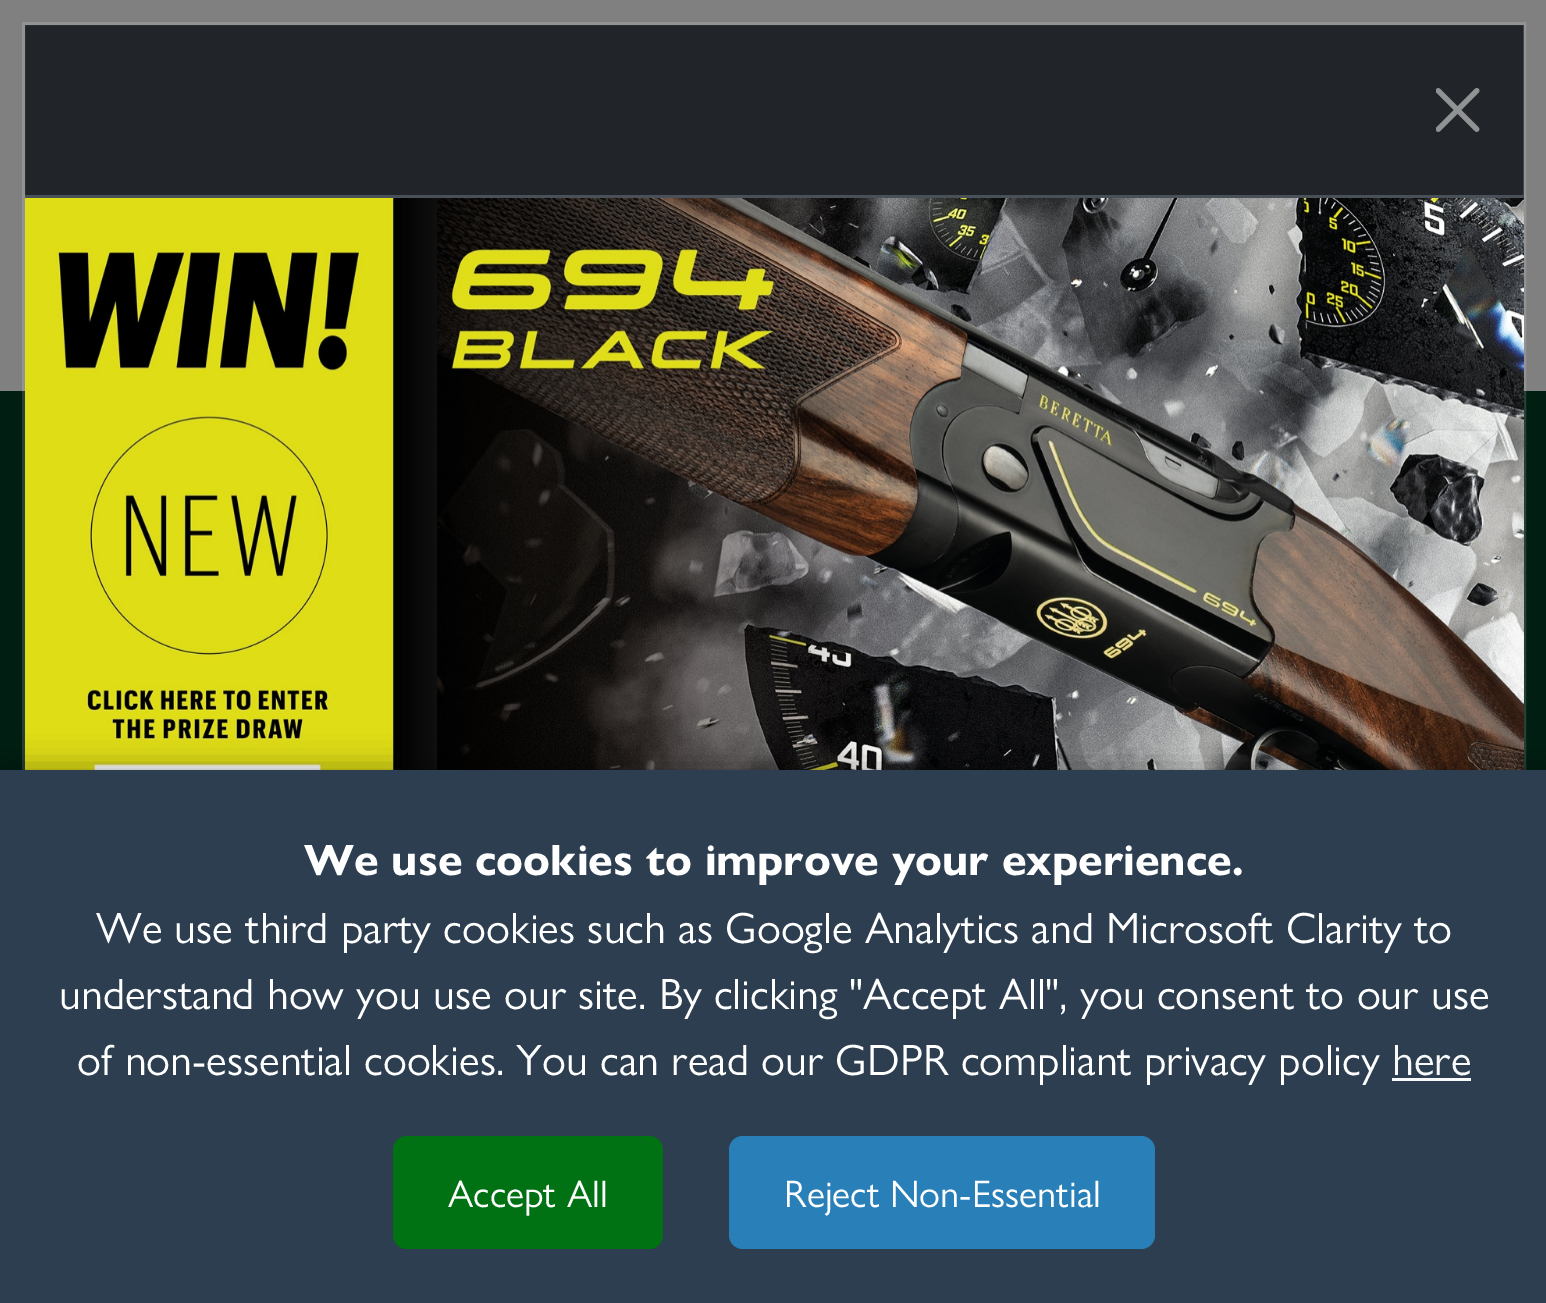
%!PS-Adobe-3.0
%%BoundingBox: 0 0 1546 1303
%%LanguageLevel: 3
%%Pages: 1
%%EndComments
%%BeginProlog
/setalpha { dup .setfillconstantalpha .setstrokeconstantalpha } def
/rrect { 5 dict begin { /r /h /w /y /x } { exch def } forall
  x r add y moveto x w add y 2 copy h add r arct x w add y h add x 1 index r arct
  x y h add x y r arct x y 2 copy exch w add exch r arct closepath end } def
/softshadow { 12 dict begin { /a /b /q /h /w /y /x } { exch def } forall gsave /was 0 def
  9 -2 -9 { dup b mul 4 div /e exch def 1 sub .425 mul 2.718 exch exp 1 add a .99 .min exch div /now exch def
    1 1 now sub 1 was sub div sub setalpha /was now def
    w h .min e 2 mul add 0 gt { x e sub y e sub w e 2 mul add h e 2 mul add
      q e add b .6 mul add w h .min 2 div e add .min 0 .max rrect fill } if } for grestore end } def
/drawimage { 5 dict begin { /h /w /y /x /name } { exch def } forall
  gsave x y translate w h scale
  w h 8 [w 0 0 h 0 0] name (r) file false 3 colorimage grestore end } def
%%EndProlog
%%BeginSetup
<< /PageSize [1546 1303] /PageUsesTransparency true >> setpagedevice
%%EndSetup
%%Page: 1 1
0 .pushpdf14devicefilter
0 1303 translate 1 -1 scale
4 setmiterlimit
0.502 setgray
0 0 1546 1303 rectfill
0.129 0.145 0.161 setrgbcolor
25 25 1499 170 rectfill
0 0.118 0.071 setrgbcolor
0 391 1546 379 rectfill
0.15 setalpha
1 setgray
3 setlinewidth
23.5 23.5 1501 1020 rectstroke
1 setalpha
0.286 0.314 0.341 setrgbcolor
25 195 1499 3 rectfill
(images/1.raw) 1436 88 44 44 drawimage
(images/2.raw) 25 198 1499 572 drawimage
0 setgray
0 765 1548 533 0 14 0.3 softshadow
0.173 0.243 0.314 setrgbcolor
0 770 1546 533 rectfill
0.973 0.976 0.98 setrgbcolor
1392 1078 79 3 rectfill
0 0.447 0.075 setrgbcolor
393 1136 270 113 14 rrect fill
0.161 0.502 0.725 setrgbcolor
729 1136 426 113 14 rrect fill
/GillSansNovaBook-Bold [44 0 0 -44 0 0] selectfont
1 setgray
304 875 moveto (We use cookies to improve your experience.) show
/GillSansNovaBook-Regular [44 0 0 -44 0 0] selectfont
96 943 moveto (We use third party cookies such as Google Analytics and Microsoft Clarity to) show
59 1009 moveto (understand how you use our site. By clicking "Accept All", you consent to our use) show
77 1075 moveto (of non-essential cookies. You can read our GDPR compliant privacy policy) show
0.973 0.976 0.98 setrgbcolor
1392 1075 moveto (here) show
/GillSansNovaBook-Regular [38.5 0 0 -38.5 0 0] selectfont
1 setgray
448 1207 moveto (Accept All) show
784 1207 moveto (Reject Non-Essential) show
.poppdf14devicefilter showpage
%%EOF
